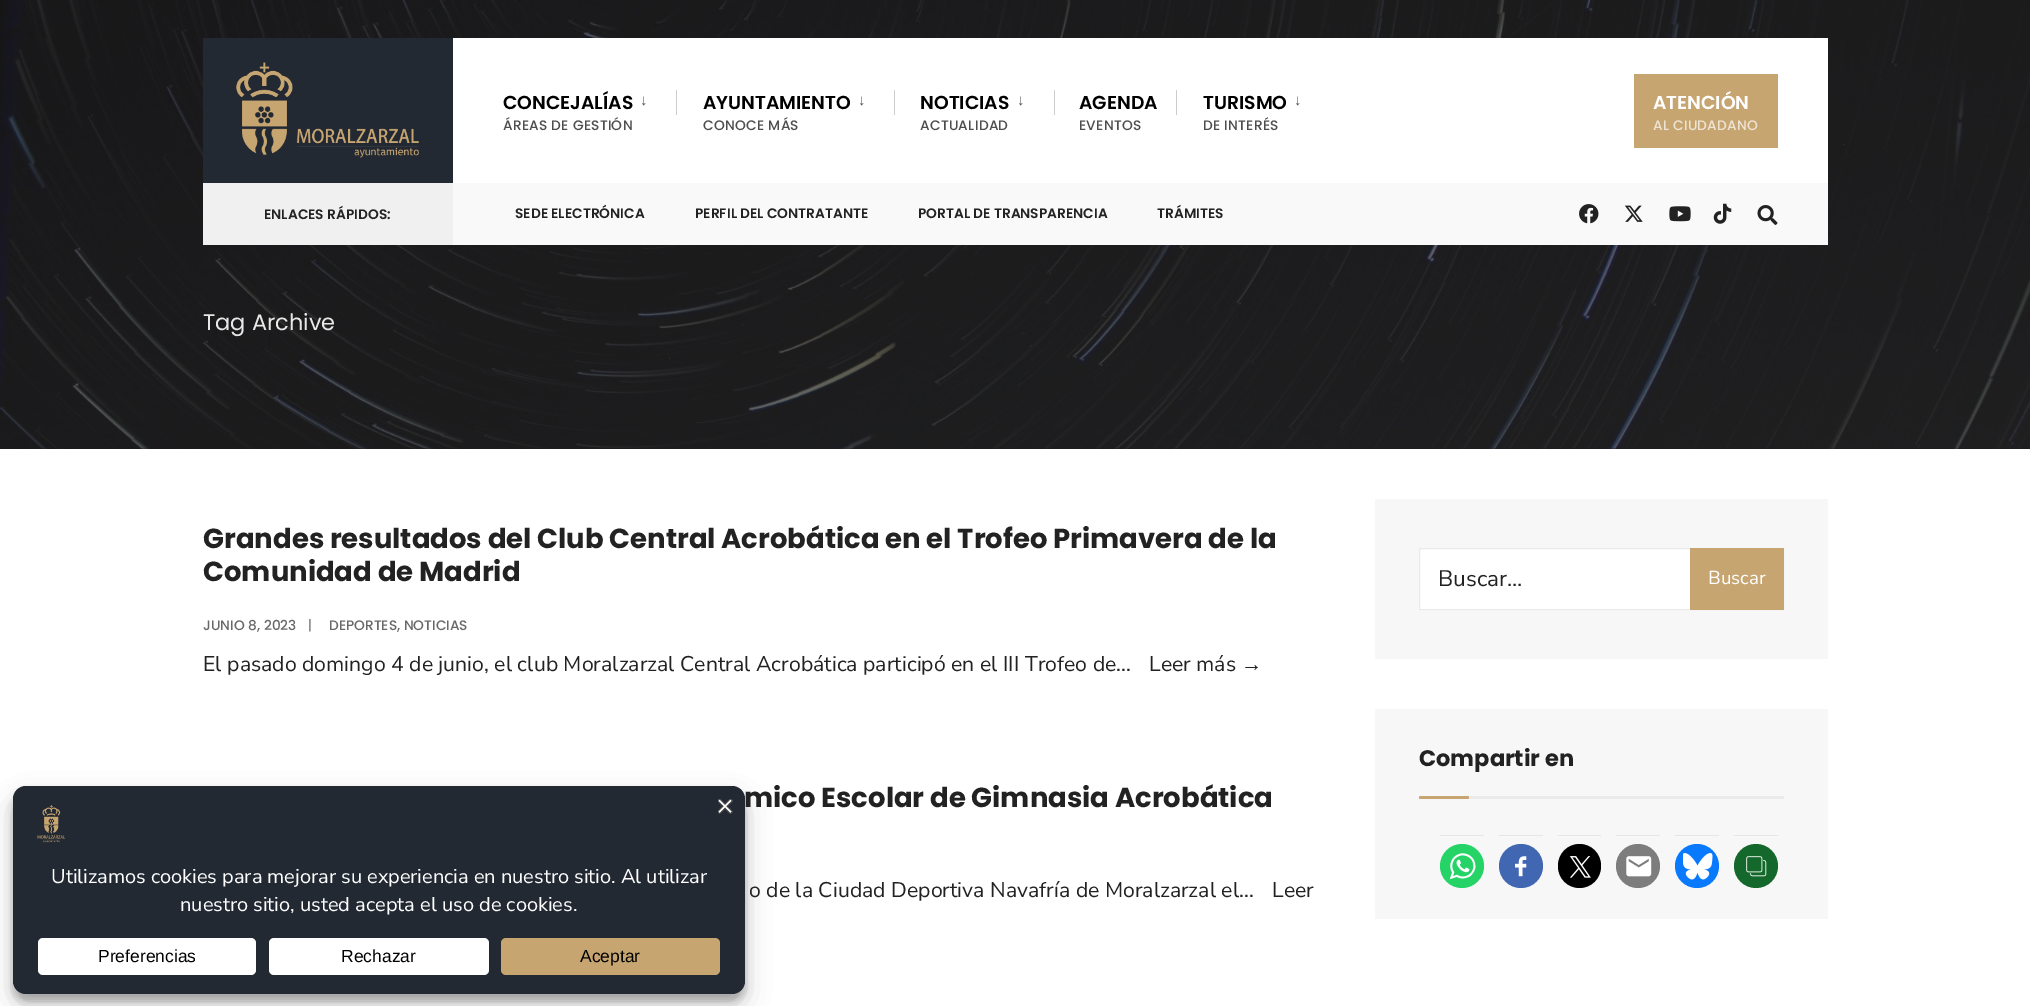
%!PS-Adobe-3.0
%%BoundingBox: 0 0 2030 1006
%%LanguageLevel: 3
%%Pages: 1
%%EndComments
%%BeginProlog
/setalpha { dup .setfillconstantalpha .setstrokeconstantalpha } def
/rrect { 5 dict begin { /r /h /w /y /x } { exch def } forall
  x r add y moveto x w add y 2 copy h add r arct x w add y h add x 1 index r arct
  x y h add x y r arct x y 2 copy exch w add exch r arct closepath end } def
/softshadow { 12 dict begin { /a /b /q /h /w /y /x } { exch def } forall gsave /was 0 def
  9 -2 -9 { dup b mul 4 div /e exch def 1 sub .425 mul 2.718 exch exp 1 add a .99 .min exch div /now exch def
    1 1 now sub 1 was sub div sub setalpha /was now def
    w h .min e 2 mul add 0 gt { x e sub y e sub w e 2 mul add h e 2 mul add
      q e add b .6 mul add w h .min 2 div e add .min 0 .max rrect fill } if } for grestore end } def
/drawimage { 5 dict begin { /h /w /y /x /name } { exch def } forall
  gsave x y translate w h scale
  w h 8 [w 0 0 h 0 0] name (r) file false 3 colorimage grestore end } def
%%EndProlog
%%BeginSetup
<< /PageSize [2030 1006] /PageUsesTransparency true >> setpagedevice
%%EndSetup
%%Page: 1 1
0 .pushpdf14devicefilter
0 1006 translate 1 -1 scale
4 setmiterlimit
1 setgray
0 0 2030 1006 rectfill
0.118 setgray
0 0 2030 449 rectfill
(images/7.raw) 0 0 2030 449 drawimage
1 setgray
453 38 1375 145 rectfill
0.133 0.161 0.2 setrgbcolor
203 38 250 145 rectfill
(images/1.raw) 236 62 183 96 drawimage
0.8 setgray
676 90 1 25 rectfill
894 90 1 25 rectfill
1054 90 1 25 rectfill
1176 90 1 25 rectfill
0.78 0.647 0.443 setrgbcolor
1634 74 144 74 rectfill
0.976 setgray
453 183 1375 62 rectfill
0.941 setgray
203 183 250 62 rectfill
(images/2.raw) 1579 204 20 20 drawimage
(images/3.raw) 1624 205 19 17 drawimage
(images/4.raw) 1669 206 22 16 drawimage
(images/5.raw) 1713 203 19 21 drawimage
(images/6.raw) 1757 205 21 20 drawimage
0.969 setgray
1375 499 453 160 rectfill
1 setgray
1420 549 270 60 rectfill
0.918 setgray
1419.5 548.5 364 61 rectstroke
0.78 0.647 0.443 setrgbcolor
1690 548 94 62 rectfill
0.969 setgray
1375 709 453 210 rectfill
0.918 setgray
1466 796 318 3 1.5 rrect fill
0.78 0.647 0.443 setrgbcolor
1419 796 50 3 1.5 rrect fill
0.902 setgray
1440 835 44 1 rectfill
0.145 0.827 0.4 setrgbcolor
newpath 1462 866 22 0 360 arc closepath fill
(images/8.raw) 1449 853 27 27 drawimage
0.902 setgray
1499 835 44 1 rectfill
0.259 0.404 0.698 setrgbcolor
newpath 1521 866 22 0 360 arc closepath fill
(images/9.raw) 1515 856 12 21 drawimage
0.902 setgray
1558 835 43 1 rectfill
0 setgray
1558 844 43 44 21.5 rrect fill
(images/10.raw) 1569 856 22 22 drawimage
0.902 setgray
1616 835 44 1 rectfill
0.49 setgray
newpath 1638 866 22 0 360 arc closepath fill
(images/11.raw) 1626 856 26 21 drawimage
0.902 setgray
1675 835 44 1 rectfill
0.035 0.478 0.996 setrgbcolor
newpath 1697 866 22 0 360 arc closepath fill
(images/12.raw) 1683 853 30 27 drawimage
0.902 setgray
1734 835 44 1 rectfill
0.078 0.408 0.169 setrgbcolor
newpath 1756 866 22 0 360 arc closepath fill
(images/13.raw) 1746 856 21 21 drawimage
0 setgray
13 794 732 207 13 4 0.23 softshadow
13 799 732 207 13 12.5 0.19 softshadow
0.133 0.161 0.2 setrgbcolor
13 786 732 208 13 rrect fill
(images/14.raw) 37 805 28 38 drawimage
(images/15.raw) 718 799 15 15 drawimage
1 setgray
38 938 218 37 5 rrect fill
269 938 220 37 5 rrect fill
0.78 0.647 0.443 setrgbcolor
501 938 219 37 5 rrect fill
/Poppins-SemiBold [18.75 0 0 -18.75 0 0] selectfont
0 setgray
503 109 moveto (CONCEJALÍAS) show
/LiberationSans-Regular [15 0 0 -15 0 0] selectfont
0.302 setgray
640 105 moveto (↓) show
/Poppins-Medium [13.75 0 0 -13.75 0 0] selectfont
503 130 moveto 0.25 0 (ÁREAS DE GESTIÓN) ashow
/Poppins-SemiBold [18.75 0 0 -18.75 0 0] selectfont
0 setgray
703 109 moveto (AYUNTAMIENTO) show
/LiberationSans-Regular [15 0 0 -15 0 0] selectfont
0.302 setgray
858 105 moveto (↓) show
/Poppins-Medium [13.75 0 0 -13.75 0 0] selectfont
703 130 moveto 0.25 0 (CONOCE MÁS) ashow
/Poppins-SemiBold [18.75 0 0 -18.75 0 0] selectfont
0 setgray
920 109 moveto (NOTICIAS) show
/LiberationSans-Regular [15 0 0 -15 0 0] selectfont
0.302 setgray
1017 105 moveto (↓) show
/Poppins-Medium [13.75 0 0 -13.75 0 0] selectfont
920 130 moveto 0.25 0 (ACTUALIDAD) ashow
/Poppins-SemiBold [18.75 0 0 -18.75 0 0] selectfont
0 setgray
1079 109 moveto (AGENDA) show
/Poppins-Medium [13.75 0 0 -13.75 0 0] selectfont
0.302 setgray
1079 130 moveto 0.25 0 (EVENTOS) ashow
/Poppins-SemiBold [18.75 0 0 -18.75 0 0] selectfont
0 setgray
1203 109 moveto (TURISMO) show
/LiberationSans-Regular [15 0 0 -15 0 0] selectfont
0.302 setgray
1294 105 moveto (↓) show
/Poppins-Medium [13.75 0 0 -13.75 0 0] selectfont
1203 130 moveto 0.25 0 (DE INTERÉS) ashow
/Poppins-SemiBold [18.75 0 0 -18.75 0 0] selectfont
1 setgray
1653 109 moveto (ATENCIÓN) show
/Poppins-Medium [13.75 0 0 -13.75 0 0] selectfont
0.933 0.894 0.831 setrgbcolor
1653 130 moveto 0.25 0 (AL CIUDADANO) ashow
/Poppins-SemiBold [13.75 0 0 -13.75 0 0] selectfont
0.133 setgray
264 219 moveto (ENLACES RÁPIDOS:) show
515 218 moveto (SEDE ELECTRÓNICA) show
695 218 moveto (PERFIL DEL CONTRATANTE) show
918 218 moveto (PORTAL DE TRANSPARENCIA) show
1157 218 moveto (TRÁMITES) show
/Poppins-Regular [22.5 0 0 -22.5 0 0] selectfont
0.91 setgray
203 330 moveto (Tag Archive) show
/Poppins-Bold [27.5 0 0 -27.5 0 0] selectfont
0.133 setgray
203 548 moveto (Grandes resultados del Club Central Acrobática en el Trofeo Primavera de la) show
203 581 moveto (Comunidad de Madrid) show
/Poppins-Medium [13.75 0 0 -13.75 0 0] selectfont
0.408 setgray
203 630 moveto (JUNIO 8, 2023) show
/Poppins-Regular [13.75 0 0 -13.75 0 0] selectfont
308 630 moveto (|) show
/Poppins-Medium [13.75 0 0 -13.75 0 0] selectfont
329 630 moveto (DEPORTES, NOTICIAS) show
/NunitoSans-Regular [21.25 0 0 -21.25 0 0] selectfont
0.133 setgray
203 671 moveto (El pasado domingo 4 de junio, el club Moralzarzal Central Acrobática participó en el III Trofeo de...) show
1149 671 moveto (Leer más) show
/LiberationSerif-Regular [21.25 0 0 -21.25 0 0] selectfont
1241 671 moveto (→) show
/Poppins-Bold [27.5 0 0 -27.5 0 0] selectfont
744 807 moveto (mico Escolar de Gimnasia Acrobática) show
/NunitoSans-Regular [21.25 0 0 -21.25 0 0] selectfont
749 897 moveto (o de la Ciudad Deportiva Navafría de Moralzarzal el...) show
1272 897 moveto (Leer) show
/NunitoSans-Regular [22.5 0 0 -22.5 0 0] selectfont
1438 586 moveto (Buscar...) show
/NunitoSans-Regular [18.75 0 0 -18.75 0 0] selectfont
1 setgray
1708 584 moveto (Buscar) show
/Poppins-Bold [22.5 0 0 -22.5 0 0] selectfont
0.133 setgray
1419 766 moveto (Compartir en) show
/NunitoSans-Regular [20 0 0 -20 0 0] selectfont
1 setgray
51 883 moveto (Utilizamos cookies para mejorar su experiencia en nuestro sitio. Al utilizar) show
180 911 moveto (nuestro sitio, usted acepta el uso de cookies.) show
/LiberationSans-Regular [17.5 0 0 -17.5 0 0] selectfont
0 setgray
98 962 moveto (Preferencias) show
341 962 moveto (Rechazar) show
580 962 moveto (Aceptar) show
.poppdf14devicefilter showpage
%%EOF
